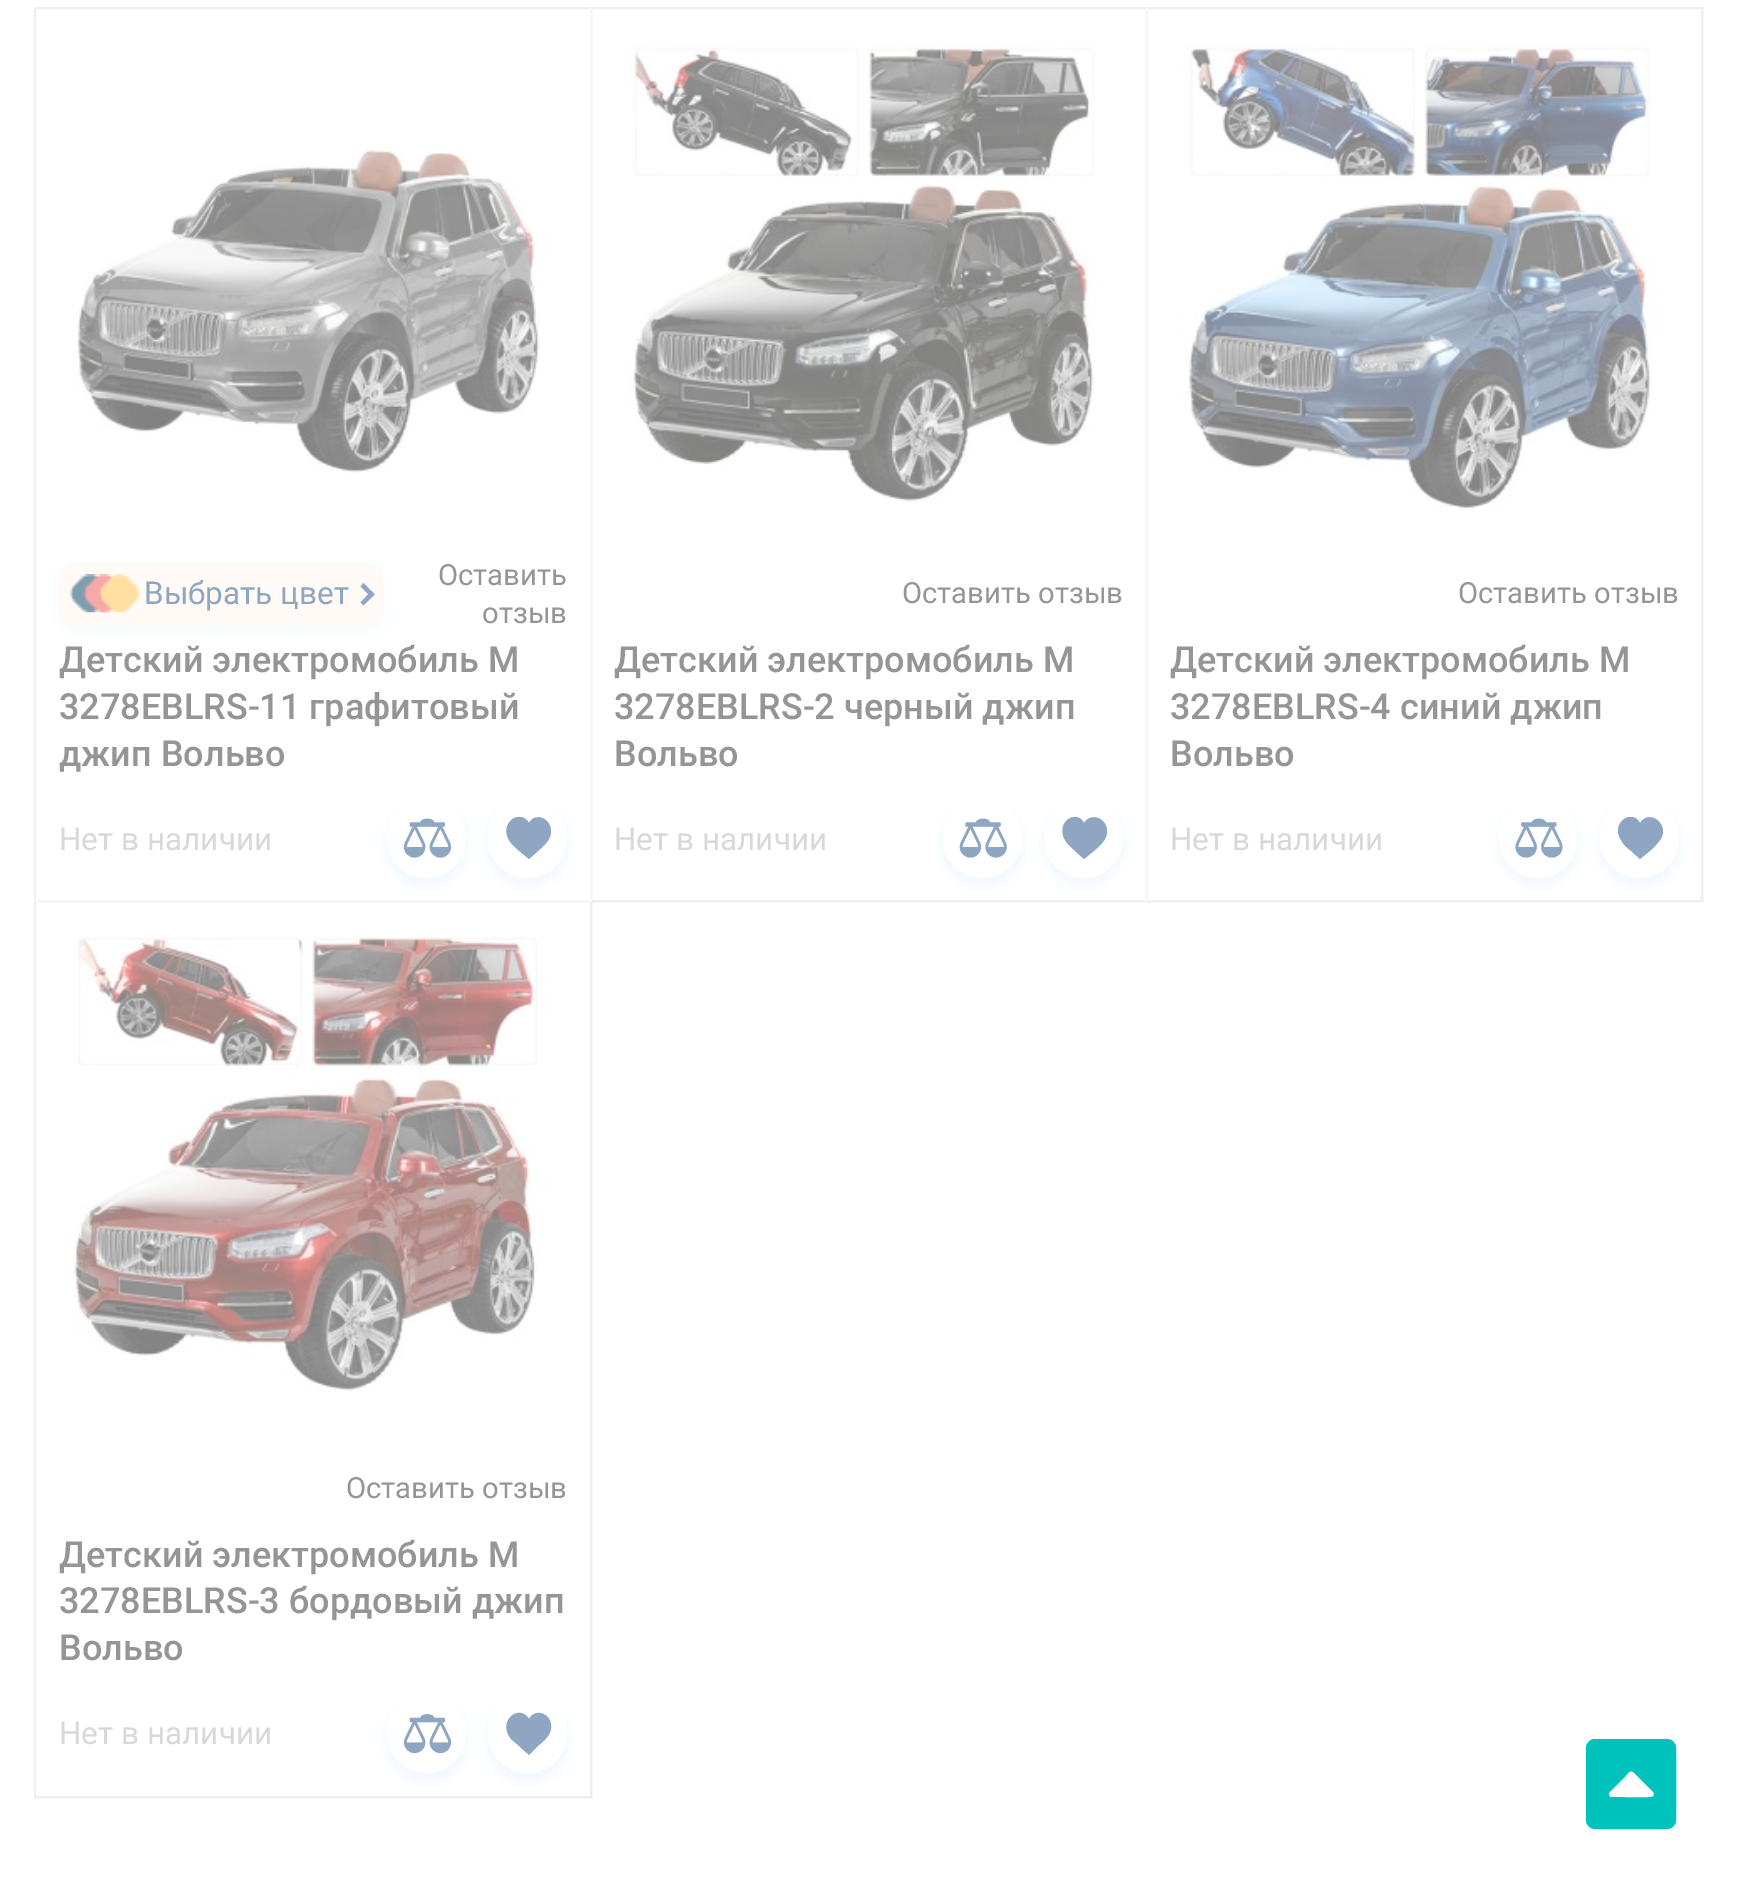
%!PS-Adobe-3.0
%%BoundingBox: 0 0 1742 1896
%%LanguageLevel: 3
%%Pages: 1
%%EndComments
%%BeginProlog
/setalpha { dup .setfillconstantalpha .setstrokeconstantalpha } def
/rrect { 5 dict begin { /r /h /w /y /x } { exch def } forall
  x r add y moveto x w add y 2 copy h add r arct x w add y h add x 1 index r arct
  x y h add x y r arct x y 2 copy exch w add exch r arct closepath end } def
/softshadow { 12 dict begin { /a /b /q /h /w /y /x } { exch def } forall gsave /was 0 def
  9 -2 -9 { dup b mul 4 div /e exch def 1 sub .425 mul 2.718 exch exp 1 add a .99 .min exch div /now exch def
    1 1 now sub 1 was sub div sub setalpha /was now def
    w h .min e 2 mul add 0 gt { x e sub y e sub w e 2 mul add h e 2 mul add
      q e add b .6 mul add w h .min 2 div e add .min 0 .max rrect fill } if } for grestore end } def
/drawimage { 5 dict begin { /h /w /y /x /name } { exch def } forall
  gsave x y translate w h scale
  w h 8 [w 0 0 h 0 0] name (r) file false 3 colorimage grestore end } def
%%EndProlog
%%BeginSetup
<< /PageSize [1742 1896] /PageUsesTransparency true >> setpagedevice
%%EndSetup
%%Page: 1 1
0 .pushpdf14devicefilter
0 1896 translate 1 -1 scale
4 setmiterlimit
1 setgray
0 0 1742 1896 rectfill
0.871 setgray
2 setlinewidth
35 8 556 893 rectstroke
(images/1.raw) 70 149 483 324 drawimage
0.149 0.502 0.922 setrgbcolor
59 569 324 63 14 7 0.08 softshadow
0.996 0.961 0.925 setrgbcolor
59 563 324 63 14 rrect fill
(images/2.raw) 69 574 71 39 drawimage
0.118 0.302 0.518 setrgbcolor
newpath 374.5 594.5 moveto 363.5 605.5 lineto 360.5 602.5 lineto 371.5 591 lineto closepath fill
newpath 374.5 594.5 moveto 371.5 597.5 lineto 360.5 586.5 lineto 363.5 583 lineto closepath fill
0.871 setgray
591 8 556 893 rectstroke
35 901 556 896 rectstroke
0.149 0.502 0.922 setrgbcolor
387 806 79 78 39 7 0.16 softshadow
1 setgray
newpath 426.5 838.5 39.5 0 360 arc closepath fill
(images/3.raw) 403 818 49 40 drawimage
0.149 0.502 0.922 setrgbcolor
488 806 79 78 39 7 0.16 softshadow
1 setgray
newpath 527.5 838.5 39.5 0 360 arc closepath fill
gsave
506 817 45 43 rectclip
0.118 0.302 0.518 setrgbcolor
newpath 551 830 moveto 550 818 535 812 529 823 curveto 520 808 499 823 509 840 curveto 511 844 515 847 518 850 curveto 529 859 lineto 539 850 lineto 545 845 552 838 551 830 curveto closepath fill
grestore
(images/4.raw) 625 43 483 462 drawimage
0.149 0.502 0.922 setrgbcolor
943 806 79 78 39 7 0.16 softshadow
1 setgray
newpath 982.5 838.5 39.5 0 360 arc closepath fill
(images/5.raw) 959 818 48 40 drawimage
0.149 0.502 0.922 setrgbcolor
1044 806 79 78 39 7 0.16 softshadow
1 setgray
newpath 1083.5 838.5 39.5 0 360 arc closepath fill
gsave
1062 817 45 43 rectclip
0.118 0.302 0.518 setrgbcolor
newpath 1107 830 moveto 1106 818 1091 812 1084 823 curveto 1076 808 1055 823 1065 840 curveto 1067 844 1071 847 1074 850 curveto 1084 859 lineto 1095 850 lineto 1101 845 1108 838 1107 830 curveto closepath fill
grestore
0.871 setgray
1146 8 556 893 rectstroke
(images/6.raw) 1181 43 483 469 drawimage
0.149 0.502 0.922 setrgbcolor
1499 806 78 78 39 7 0.16 softshadow
1 setgray
1499 799 78 79 39 rrect fill
(images/7.raw) 1515 818 48 40 drawimage
0.149 0.502 0.922 setrgbcolor
1600 806 79 78 39 7 0.16 softshadow
1 setgray
newpath 1639.5 838.5 39.5 0 360 arc closepath fill
gsave
1618 817 45 43 rectclip
0.118 0.302 0.518 setrgbcolor
newpath 1663 830 moveto 1661 818 1647 812 1640 823 curveto 1632 808 1610 823 1621 840 curveto 1623 844 1626 847 1630 850 curveto 1640 859 lineto 1651 850 lineto 1656 845 1664 838 1663 830 curveto closepath fill
grestore
(images/8.raw) 70 936 482 456 drawimage
0.149 0.502 0.922 setrgbcolor
387 1701 79 79 39.5 7 0.16 softshadow
1 setgray
newpath 426.5 1733.5 39.5 0 360 arc closepath fill
(images/9.raw) 403 1714 49 40 drawimage
0.149 0.502 0.922 setrgbcolor
488 1701 79 79 39.5 7 0.16 softshadow
1 setgray
newpath 527.5 1733.5 39.5 0 360 arc closepath fill
0.118 0.302 0.518 setrgbcolor
newpath 551 1725 moveto 550 1713 535 1708 529 1719 curveto 520 1704 499 1719 509 1736 curveto 511 1740 515 1742 518 1745 curveto 529 1755 lineto 539 1745 lineto 545 1740 552 1734 551 1725 curveto closepath fill
0 0.761 0.737 setrgbcolor
1588.5 1741.5 85 85 6.5 rrect gsave fill grestore
5 setlinewidth
stroke
1 setgray
newpath 1653 1792 moveto 1637 1776 lineto 1631 1770 1631 1770 1626 1776 curveto 1610 1792 lineto 1608 1794 1609 1796 1611 1797 curveto 1625 1797 lineto 1629 1797 1651 1798 1653 1796 curveto 1654 1795 1654 1793 1653 1792 curveto closepath fill
/Roboto-Regular [31.5 0 0 -31.5 0 0] selectfont
0.118 0.302 0.518 setrgbcolor
144 604 moveto (Выбрать цвет) show
/Roboto-Regular [29.25 0 0 -29.25 0 0] selectfont
0.169 setgray
438 585 moveto (Оставить) show
482 623 moveto (отзыв) show
/Roboto-Medium [36 0 0 -36 0 0] selectfont
59 672 moveto (Детский электромобиль M) show
59 719 moveto (3278EBLRS-11 графитовый) show
59 766 moveto (джип Вольво) show
/Roboto-Regular [31.5 0 0 -31.5 0 0] selectfont
0.694 setgray
59 850 moveto (Нет в наличии) show
0.5 setalpha
1 setgray
34 7 558 895 rectfill
/Roboto-Regular [29.25 0 0 -29.25 0 0] selectfont
1 setalpha
0.169 setgray
902 603 moveto (Оставить отзыв) show
/Roboto-Medium [36 0 0 -36 0 0] selectfont
614 672 moveto (Детский электромобиль M) show
614 719 moveto (3278EBLRS-2 черный джип) show
614 766 moveto (Вольво) show
/Roboto-Regular [31.5 0 0 -31.5 0 0] selectfont
0.694 setgray
614 850 moveto (Нет в наличии) show
0.5 setalpha
1 setgray
590 7 558 895 rectfill
/Roboto-Regular [29.25 0 0 -29.25 0 0] selectfont
1 setalpha
0.169 setgray
1458 603 moveto (Оставить отзыв) show
/Roboto-Medium [36 0 0 -36 0 0] selectfont
1170 672 moveto (Детский электромобиль M) show
1170 719 moveto (3278EBLRS-4 синий джип) show
1170 766 moveto (Вольво) show
/Roboto-Regular [31.5 0 0 -31.5 0 0] selectfont
0.694 setgray
1170 850 moveto (Нет в наличии) show
0.5 setalpha
1 setgray
1145 7 558 895 rectfill
/Roboto-Regular [29.25 0 0 -29.25 0 0] selectfont
1 setalpha
0.169 setgray
346 1498 moveto (Оставить отзыв) show
/Roboto-Medium [36 0 0 -36 0 0] selectfont
59 1567 moveto (Детский электромобиль M) show
59 1613 moveto (3278EBLRS-3 бордовый джип) show
59 1660 moveto (Вольво) show
/Roboto-Regular [31.5 0 0 -31.5 0 0] selectfont
0.694 setgray
59 1744 moveto (Нет в наличии) show
0.5 setalpha
1 setgray
34 900 558 898 rectfill
.poppdf14devicefilter showpage
%%EOF
